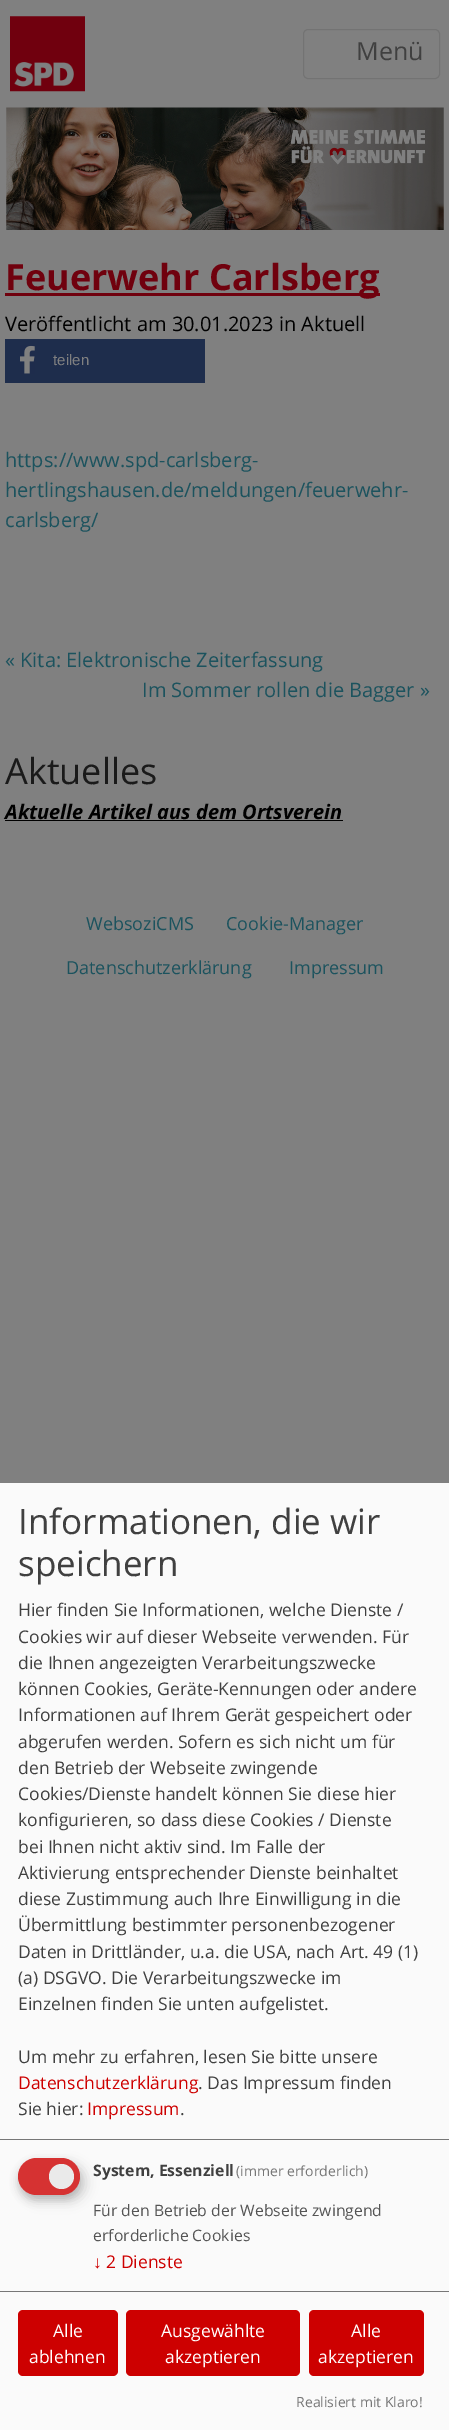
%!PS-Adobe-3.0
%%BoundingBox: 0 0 449 2430
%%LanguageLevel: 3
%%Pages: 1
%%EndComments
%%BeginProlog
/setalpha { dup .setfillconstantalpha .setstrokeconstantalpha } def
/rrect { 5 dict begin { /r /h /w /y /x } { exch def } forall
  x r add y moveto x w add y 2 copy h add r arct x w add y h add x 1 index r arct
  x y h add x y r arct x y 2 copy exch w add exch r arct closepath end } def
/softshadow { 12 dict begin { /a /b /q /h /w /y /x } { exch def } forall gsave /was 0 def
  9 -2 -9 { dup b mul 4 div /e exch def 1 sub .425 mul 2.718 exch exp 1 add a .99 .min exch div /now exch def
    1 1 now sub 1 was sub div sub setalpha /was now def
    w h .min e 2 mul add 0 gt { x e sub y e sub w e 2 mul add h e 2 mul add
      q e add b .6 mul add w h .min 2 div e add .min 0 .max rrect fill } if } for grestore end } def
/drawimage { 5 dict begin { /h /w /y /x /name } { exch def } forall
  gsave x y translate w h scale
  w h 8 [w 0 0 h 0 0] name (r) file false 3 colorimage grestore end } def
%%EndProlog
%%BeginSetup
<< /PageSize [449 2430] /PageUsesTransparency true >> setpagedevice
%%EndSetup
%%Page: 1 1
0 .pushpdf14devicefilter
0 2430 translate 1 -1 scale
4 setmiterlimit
0.502 setgray
0 0 449 2430 rectfill
(images/1.raw) 10 16 75 76 drawimage
0.451 setgray
303.5 29.5 136 49 4.5 rrect stroke
(images/2.raw) 6 107 438 123 drawimage
0.439 0.004 0.055 setrgbcolor
5 293 375 3 rectfill
0.118 0.176 0.298 setrgbcolor
5 339 200 44 rectfill
(images/3.raw) 20 345 15 29 drawimage
0 setgray
5 820 338 1 rectfill
0.98 setgray
0 1483 449 947 rectfill
0.467 setgray
0 2139 449 1 rectfill
0 setgray
24 2164 62 37 18.5 6 0.15 softshadow
0.196 setgray
18 2163 62 37 18.5 4 0.2 softshadow
0.839 0.196 0.196 setrgbcolor
18 2158 62 37 18.5 rrect fill
0.918 setgray
newpath 61.5 2176.5 12.5 0 360 arc closepath fill
0.467 setgray
0 2291 449 1 rectfill
0.804 0 0 setrgbcolor
18 2310 100 66 5 rrect fill
126 2310 174 66 5 rrect fill
309 2310 115 66 5 rrect fill
/OpenSans-Regular [25 0 0 -25 0 0] selectfont
0.251 setgray
356 60 moveto (Menü) show
/OpenSans-Bold [36 0 0 -36 0 0] selectfont
0.439 0.004 0.055 setrgbcolor
5 290 moveto (Feuerwehr Carlsberg) show
/OpenSans-Regular [20 0 0 -20 0 0] selectfont
0 setgray
5 331 moveto (Veröffentlicht am 30.01.2023 in Aktuell) show
/LiberationSans-Regular [15 0 0 -15 0 0] selectfont
0.502 setgray
53 365 moveto (teilen) show
/OpenSans-Regular [20 0 0 -20 0 0] selectfont
0.11 0.325 0.369 setrgbcolor
5 467 moveto (https://www.spd-carlsberg-) show
5 497 moveto (hertlingshausen.de/meldungen/feuerwehr-) show
5 527 moveto (carlsberg/) show
5 667 moveto (« Kita: Elektronische Zeiterfassung) show
142 697 moveto (Im Sommer rollen die Bagger ») show
/OpenSans-Regular [36 0 0 -36 0 0] selectfont
0.102 setgray
5 784 moveto (Aktuelles) show
/OpenSans-BoldItalic [20 0 0 -20 0 0] selectfont
0 setgray
5 819 moveto (Aktuelle Artikel aus dem Ortsverein) show
/OpenSans-Regular [18 0 0 -18 0 0] selectfont
0.11 0.325 0.369 setrgbcolor
86 930 moveto (WebsoziCMS) show
226 930 moveto (Cookie-Manager) show
66 974 moveto (Datenschutzerklärung) show
289 974 moveto (Impressum) show
/OpenSans-Regular [35 0 0 -35 0 0] selectfont
0.251 setgray
18 1534 moveto (Informationen, die wir) show
18 1576 moveto (speichern) show
/OpenSans-Regular [17.5 0 0 -17.5 0 0] selectfont
18 1616 moveto (Hier finden Sie Informationen, welche Dienste /) show
18 1643 moveto (Cookies wir auf dieser Webseite verwenden. Für) show
18 1669 moveto (die Ihnen angezeigten Verarbeitungszwecke) show
18 1695 moveto (können Cookies, Geräte-Kennungen oder andere) show
18 1721 moveto (Informationen auf Ihrem Gerät gespeichert oder) show
18 1748 moveto (abgerufen werden. Sofern es sich nicht um für) show
18 1774 moveto (den Betrieb der Webseite zwingende) show
18 1800 moveto (Cookies/Dienste handelt können Sie diese hier) show
18 1826 moveto (konfigurieren, so dass diese Cookies / Dienste) show
18 1853 moveto (bei Ihnen nicht aktiv sind. Im Falle der) show
18 1879 moveto (Aktivierung entsprechender Dienste beinhaltet) show
18 1905 moveto (diese Zustimmung auch Ihre Einwilligung in die) show
18 1931 moveto (Übermittlung bestimmter personenbezogener) show
18 1958 moveto (Daten in Drittländer, u.a. die USA, nach Art. 49 \(1\)) show
18 1984 moveto (\(a\) DSGVO. Die Verarbeitungszwecke im) show
18 2010 moveto (Einzelnen finden Sie unten aufgelistet.) show
18 2063 moveto (Um mehr zu erfahren, lesen Sie bitte unsere) show
0.804 0 0 setrgbcolor
18 2089 moveto (Datenschutzerklärung) show
0.251 setgray
198 2089 moveto (. Das Impressum finden) show
18 2115 moveto (Sie hier:) show
0.804 0 0 setrgbcolor
87 2115 moveto (Impressum) show
0.251 setgray
180 2115 moveto (.) show
/OpenSans-Bold [15.75 0 0 -15.75 0 0] selectfont
93 2176 moveto (System, Essenziell) show
/OpenSans-Regular [14 0 0 -14 0 0] selectfont
0.467 setgray
236 2176 moveto (\(immer erforderlich\)) show
/OpenSans-Regular [15.75 0 0 -15.75 0 0] selectfont
0.333 setgray
93 2216 moveto (Für den Betrieb der Webseite zwingend) show
93 2241 moveto (erforderliche Cookies) show
/LiberationSans-Regular [17.5 0 0 -17.5 0 0] selectfont
0.804 0 0 setrgbcolor
93 2268 moveto (↓) show
/OpenSans-Regular [17.5 0 0 -17.5 0 0] selectfont
106 2268 moveto (2 Dienste) show
1 setgray
53 2337 moveto (Alle) show
29 2363 moveto (ablehnen) show
161 2337 moveto (Ausgewählte) show
165 2363 moveto (akzeptieren) show
351 2337 moveto (Alle) show
318 2363 moveto (akzeptieren) show
/OpenSans-Regular [14 0 0 -14 0 0] selectfont
0.467 setgray
296 2407 moveto (Realisiert mit Klaro!) show
.poppdf14devicefilter showpage
%%EOF
